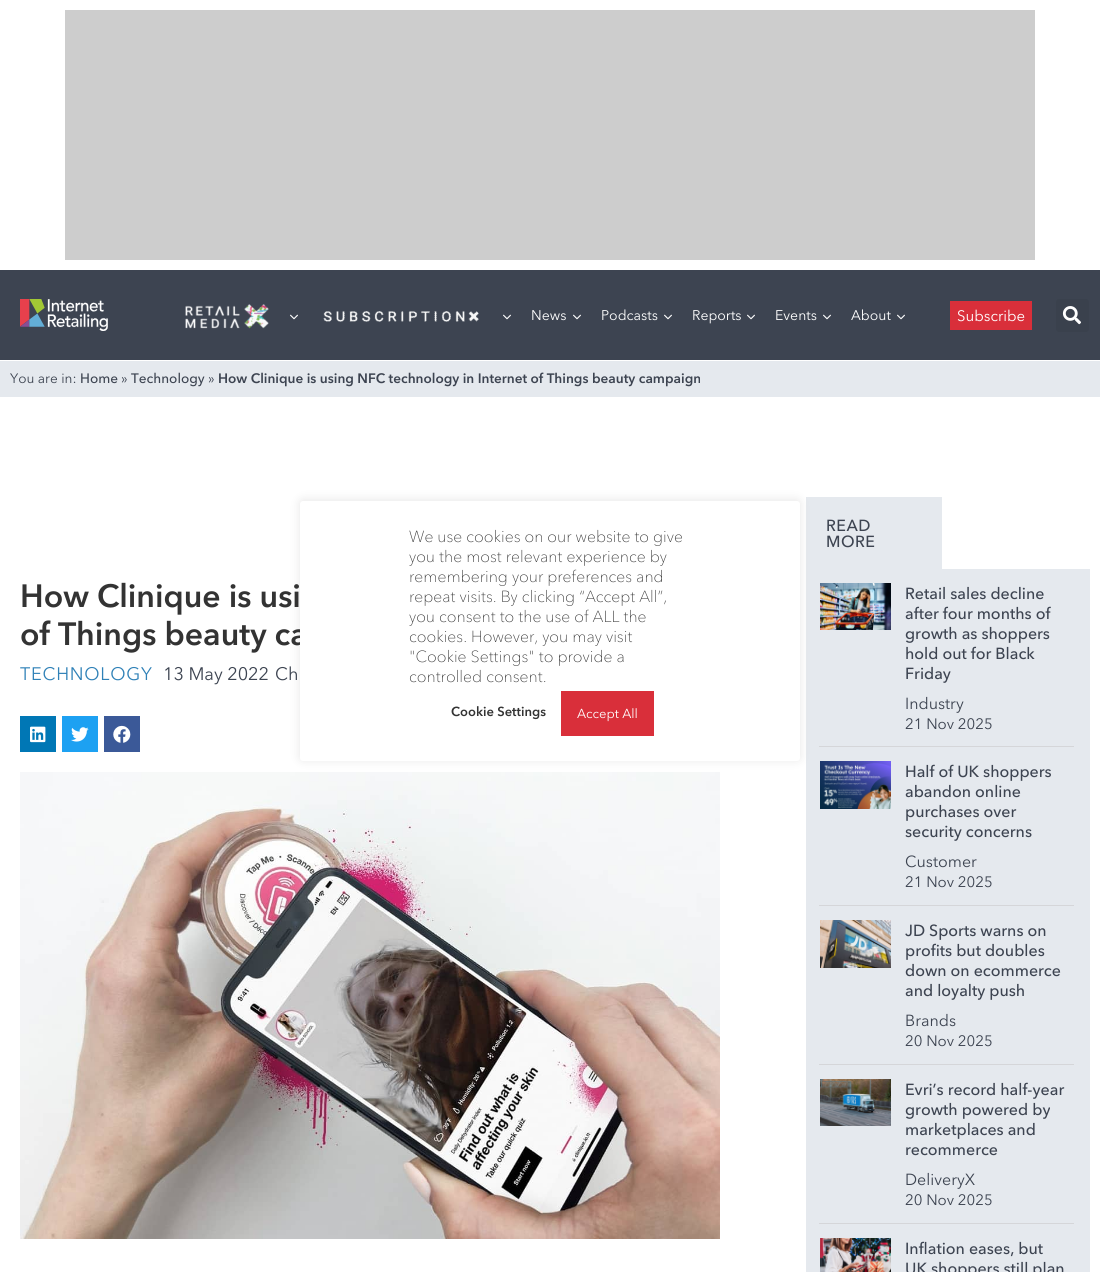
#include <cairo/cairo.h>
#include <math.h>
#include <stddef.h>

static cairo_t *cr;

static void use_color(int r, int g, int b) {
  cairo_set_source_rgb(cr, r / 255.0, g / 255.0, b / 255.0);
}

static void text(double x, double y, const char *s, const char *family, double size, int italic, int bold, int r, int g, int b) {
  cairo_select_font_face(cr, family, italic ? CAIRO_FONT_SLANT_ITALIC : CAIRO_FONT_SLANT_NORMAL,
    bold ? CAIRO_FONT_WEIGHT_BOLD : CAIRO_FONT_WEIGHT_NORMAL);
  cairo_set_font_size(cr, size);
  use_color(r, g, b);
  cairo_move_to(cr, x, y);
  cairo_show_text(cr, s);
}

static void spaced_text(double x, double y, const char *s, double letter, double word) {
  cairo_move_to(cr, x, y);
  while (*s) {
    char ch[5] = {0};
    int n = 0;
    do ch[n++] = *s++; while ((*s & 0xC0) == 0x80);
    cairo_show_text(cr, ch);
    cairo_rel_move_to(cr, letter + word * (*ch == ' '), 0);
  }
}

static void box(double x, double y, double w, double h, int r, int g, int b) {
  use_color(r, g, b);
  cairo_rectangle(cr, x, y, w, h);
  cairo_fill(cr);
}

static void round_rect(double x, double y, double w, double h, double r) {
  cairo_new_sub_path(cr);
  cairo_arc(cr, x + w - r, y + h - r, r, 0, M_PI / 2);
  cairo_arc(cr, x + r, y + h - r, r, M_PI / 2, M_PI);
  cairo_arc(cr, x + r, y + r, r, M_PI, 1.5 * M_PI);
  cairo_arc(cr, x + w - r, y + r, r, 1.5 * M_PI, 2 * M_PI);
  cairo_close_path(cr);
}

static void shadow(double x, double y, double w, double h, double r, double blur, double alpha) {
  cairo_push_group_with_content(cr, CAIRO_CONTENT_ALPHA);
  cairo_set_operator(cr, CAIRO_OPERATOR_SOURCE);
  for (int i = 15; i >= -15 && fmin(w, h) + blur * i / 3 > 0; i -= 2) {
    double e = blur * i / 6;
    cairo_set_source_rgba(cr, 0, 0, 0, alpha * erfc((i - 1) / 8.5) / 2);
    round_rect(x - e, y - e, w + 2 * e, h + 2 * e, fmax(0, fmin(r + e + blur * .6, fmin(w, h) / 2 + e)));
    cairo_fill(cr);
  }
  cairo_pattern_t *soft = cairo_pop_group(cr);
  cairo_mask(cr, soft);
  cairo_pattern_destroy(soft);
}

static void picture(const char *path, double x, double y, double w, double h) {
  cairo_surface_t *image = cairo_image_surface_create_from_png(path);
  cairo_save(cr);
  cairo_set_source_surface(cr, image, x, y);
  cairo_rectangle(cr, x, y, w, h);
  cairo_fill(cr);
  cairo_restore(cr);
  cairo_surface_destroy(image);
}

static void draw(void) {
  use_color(255, 255, 255);
  cairo_paint(cr);
  box(65, 10, 970, 250, 205, 205, 205);
  box(0, 270, 1100, 90, 61, 68, 81);
  picture("img_01.png", 20, 299, 88, 32);
  picture("img_02.png", 185, 304, 84, 25);
  picture("img_03.png", 290, 314, 8, 6);
  picture("img_04.png", 323, 311, 156, 11);
  picture("img_03.png", 503, 314, 8, 6);
  picture("img_03.png", 573, 314, 8, 6);
  picture("img_03.png", 664, 314, 8, 6);
  picture("img_03.png", 747, 314, 8, 6);
  picture("img_03.png", 823, 314, 8, 6);
  picture("img_03.png", 897, 314, 8, 6);
  box(950, 301, 82, 29, 217, 47, 58);
  use_color(58, 65, 77);
  round_rect(1056, 299, 33, 33, 3);
  cairo_fill(cr);
  picture("img_05.png", 1062, 306, 19, 19);
  box(0, 361, 1100, 36, 229, 233, 238);
  box(20, 716, 36, 36, 0, 119, 181);
  picture("img_06.png", 30, 726, 16, 17);
  box(62, 716, 36, 36, 29, 161, 242);
  picture("img_07.png", 71, 727, 18, 15);
  box(104, 716, 36, 36, 59, 89, 152);
  picture("img_08.png", 113, 725, 18, 18);
  picture("img_09.png", 20, 772, 700, 467);
  box(806, 497, 136, 72, 229, 233, 238);
  box(806, 569, 284, 703, 229, 233, 238);
  picture("img_10.png", 820, 583, 71, 47);
  box(819, 746, 255, 1, 213, 214, 217);
  picture("img_11.png", 820, 761, 71, 48);
  box(819, 905, 255, 1, 213, 214, 217);
  picture("img_12.png", 820, 920, 71, 48);
  box(819, 1064, 255, 1, 213, 214, 217);
  picture("img_13.png", 820, 1079, 71, 47);
  box(819, 1223, 255, 1, 213, 214, 217);
  picture("img_14.png", 820, 1238, 71, 34);
  use_color(172, 171, 171);
  shadow(300, 500, 500, 260, 3, 5, 0.3);
  text(531, 320, "News", "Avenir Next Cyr", 14, 0, 0, 255, 255, 255);
  text(601, 320, "Podcasts", "Avenir Next Cyr", 14, 0, 0, 255, 255, 255);
  text(692, 320, "Reports", "Avenir Next Cyr", 14, 0, 0, 255, 255, 255);
  text(775, 320, "Events", "Avenir Next Cyr", 14, 0, 0, 255, 255, 255);
  text(851, 320, "About", "Avenir Next Cyr", 14, 0, 0, 255, 255, 255);
  text(957, 321, "Subscribe", "Avenir Next Cyr", 15, 0, 0, 255, 255, 255);
  text(10, 383, "You are in:", "Avenir Next Cyr", 13.6, 0, 0, 61, 68, 81);
  text(80, 383, "Home", "Avenir Next Cyr Medium", 13.6, 0, 0, 61, 68, 81);
  text(121, 383, "»", "Avenir Next Cyr", 13.6, 0, 0, 61, 68, 81);
  text(131, 383, "Technology", "Avenir Next Cyr Medium", 13.6, 0, 0, 61, 68, 81);
  text(208, 383, "»", "Avenir Next Cyr", 13.6, 0, 0, 61, 68, 81);
  text(218, 383, "How Clinique is using NFC technology in Internet of Things beauty campaign", "Avenir Next Cyr", 13.6, 0, 1, 61, 68, 81);
  text(20, 607, "How Clinique is usi", "Avenir Next Cyr", 32, 0, 1, 51, 51, 51);
  text(20, 645, "of Things beauty ca", "Avenir Next Cyr", 32, 0, 1, 51, 51, 51);
  cairo_select_font_face(cr, "Avenir Next Cyr", CAIRO_FONT_SLANT_NORMAL, CAIRO_FONT_WEIGHT_NORMAL);
  cairo_set_font_size(cr, 18);
  use_color(47, 129, 183);
  spaced_text(20, 680, "TECHNOLOGY", 0.75, 0);
  text(163, 680, "13 May 2022", "Avenir Next Cyr", 18, 0, 0, 61, 68, 81);
  text(275, 680, "Ch", "Avenir Next Cyr", 18, 0, 0, 61, 68, 81);
  cairo_select_font_face(cr, "Avenir Next Cyr Medium", CAIRO_FONT_SLANT_NORMAL, CAIRO_FONT_WEIGHT_NORMAL);
  cairo_set_font_size(cr, 16);
  spaced_text(826, 531, "READ", 0.5, 0);
  spaced_text(826, 547, "MORE", 0.5, 0);
  text(905, 599, "Retail sales decline", "Avenir Next Cyr Medium", 16, 0, 0, 61, 68, 81);
  text(905, 619, "after four months of", "Avenir Next Cyr Medium", 16, 0, 0, 61, 68, 81);
  text(905, 639, "growth as shoppers", "Avenir Next Cyr Medium", 16, 0, 0, 61, 68, 81);
  text(905, 659, "hold out for Black", "Avenir Next Cyr Medium", 16, 0, 0, 61, 68, 81);
  text(905, 679, "Friday", "Avenir Next Cyr Medium", 16, 0, 0, 61, 68, 81);
  text(905, 709, "Industry", "Avenir Next Cyr", 16, 0, 0, 61, 68, 81);
  text(905, 729, "21 Nov 2025", "Avenir Next Cyr", 15, 0, 0, 61, 68, 81);
  text(905, 777, "Half of UK shoppers", "Avenir Next Cyr Medium", 16, 0, 0, 61, 68, 81);
  text(905, 797, "abandon online", "Avenir Next Cyr Medium", 16, 0, 0, 61, 68, 81);
  text(905, 817, "purchases over", "Avenir Next Cyr Medium", 16, 0, 0, 61, 68, 81);
  text(905, 837, "security concerns", "Avenir Next Cyr Medium", 16, 0, 0, 61, 68, 81);
  text(905, 867, "Customer", "Avenir Next Cyr", 16, 0, 0, 61, 68, 81);
  text(905, 887, "21 Nov 2025", "Avenir Next Cyr", 15, 0, 0, 61, 68, 81);
  text(905, 936, "JD Sports warns on", "Avenir Next Cyr Medium", 16, 0, 0, 61, 68, 81);
  text(905, 956, "profits but doubles", "Avenir Next Cyr Medium", 16, 0, 0, 61, 68, 81);
  text(905, 976, "down on ecommerce", "Avenir Next Cyr Medium", 16, 0, 0, 61, 68, 81);
  text(905, 996, "and loyalty push", "Avenir Next Cyr Medium", 16, 0, 0, 61, 68, 81);
  text(905, 1026, "Brands", "Avenir Next Cyr", 16, 0, 0, 61, 68, 81);
  text(905, 1046, "20 Nov 2025", "Avenir Next Cyr", 15, 0, 0, 61, 68, 81);
  text(905, 1095, "Evri’s record half-year", "Avenir Next Cyr Medium", 16, 0, 0, 61, 68, 81);
  text(905, 1115, "growth powered by", "Avenir Next Cyr Medium", 16, 0, 0, 61, 68, 81);
  text(905, 1135, "marketplaces and", "Avenir Next Cyr Medium", 16, 0, 0, 61, 68, 81);
  text(905, 1155, "recommerce", "Avenir Next Cyr Medium", 16, 0, 0, 61, 68, 81);
  text(905, 1185, "DeliveryX", "Avenir Next Cyr", 16, 0, 0, 61, 68, 81);
  text(905, 1205, "20 Nov 2025", "Avenir Next Cyr", 15, 0, 0, 61, 68, 81);
  text(905, 1254, "Inflation eases, but", "Avenir Next Cyr Medium", 16, 0, 0, 61, 68, 81);
  text(905, 1274, "UK shoppers still plan", "Avenir Next Cyr Medium", 16, 0, 0, 61, 68, 81);
  use_color(255, 255, 255);
  round_rect(300, 501, 500, 260, 3);
  cairo_fill(cr);
  text(409, 542, "We use cookies on our website to give", "Avenir Next Cyr Thin", 16, 0, 0, 51, 51, 51);
  text(409, 562, "you the most relevant experience by", "Avenir Next Cyr Thin", 16, 0, 0, 51, 51, 51);
  text(409, 582, "remembering your preferences and", "Avenir Next Cyr Thin", 16, 0, 0, 51, 51, 51);
  text(409, 602, "repeat visits. By clicking “Accept All”,", "Avenir Next Cyr Thin", 16, 0, 0, 51, 51, 51);
  text(409, 622, "you consent to the use of ALL the", "Avenir Next Cyr Thin", 16, 0, 0, 51, 51, 51);
  text(409, 642, "cookies. However, you may visit", "Avenir Next Cyr Thin", 16, 0, 0, 51, 51, 51);
  text(409, 662, "\"Cookie Settings\" to provide a", "Avenir Next Cyr Thin", 16, 0, 0, 51, 51, 51);
  text(409, 682, "controlled consent.", "Avenir Next Cyr Thin", 16, 0, 0, 51, 51, 51);
  text(451, 716, "Cookie Settings", "Avenir Next Cyr", 13, 0, 1, 51, 51, 51);
  box(561, 691, 93, 45, 217, 47, 58);
  text(577, 718, "Accept All", "Avenir Next Cyr", 13, 0, 0, 255, 255, 255);
}

int main(void) {
  cairo_surface_t *surface = cairo_image_surface_create(CAIRO_FORMAT_RGB24, 1100, 1272);
  cr = cairo_create(surface);
  cairo_font_options_t *options = cairo_font_options_create();
  cairo_font_options_set_hint_metrics(options, CAIRO_HINT_METRICS_OFF);
  cairo_font_options_set_hint_style(options, CAIRO_HINT_STYLE_NONE);
  cairo_set_font_options(cr, options);
  cairo_set_miter_limit(cr, 4);
  draw();
  cairo_surface_write_to_png(surface, "out.png");
  cairo_font_options_destroy(options);
  cairo_destroy(cr);
  cairo_surface_destroy(surface);
  return 0;
}
